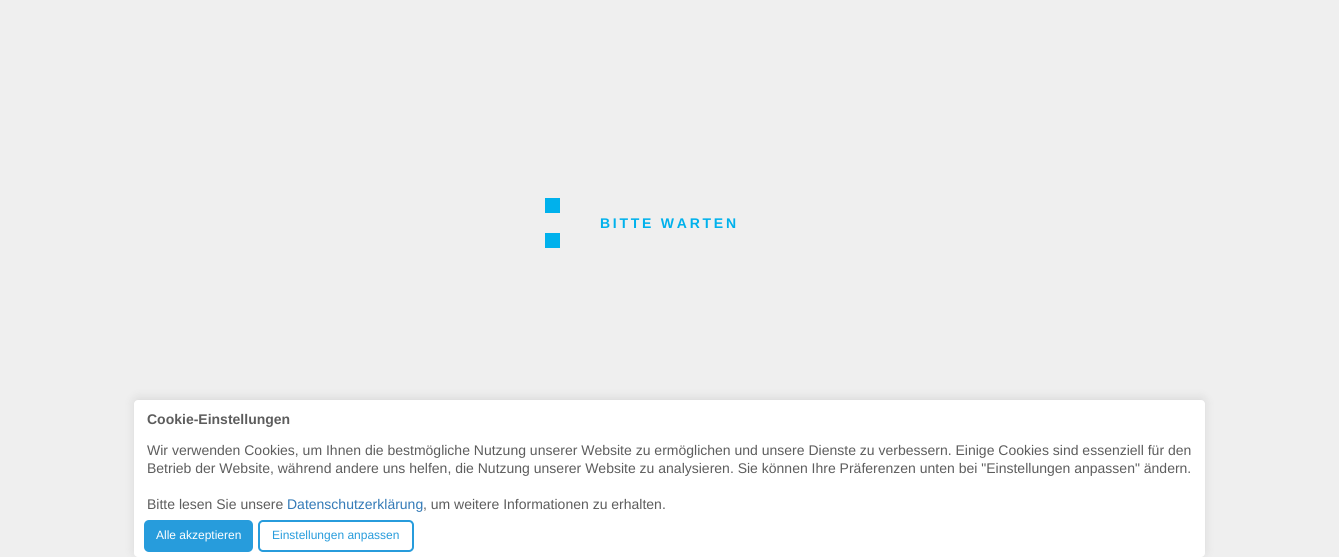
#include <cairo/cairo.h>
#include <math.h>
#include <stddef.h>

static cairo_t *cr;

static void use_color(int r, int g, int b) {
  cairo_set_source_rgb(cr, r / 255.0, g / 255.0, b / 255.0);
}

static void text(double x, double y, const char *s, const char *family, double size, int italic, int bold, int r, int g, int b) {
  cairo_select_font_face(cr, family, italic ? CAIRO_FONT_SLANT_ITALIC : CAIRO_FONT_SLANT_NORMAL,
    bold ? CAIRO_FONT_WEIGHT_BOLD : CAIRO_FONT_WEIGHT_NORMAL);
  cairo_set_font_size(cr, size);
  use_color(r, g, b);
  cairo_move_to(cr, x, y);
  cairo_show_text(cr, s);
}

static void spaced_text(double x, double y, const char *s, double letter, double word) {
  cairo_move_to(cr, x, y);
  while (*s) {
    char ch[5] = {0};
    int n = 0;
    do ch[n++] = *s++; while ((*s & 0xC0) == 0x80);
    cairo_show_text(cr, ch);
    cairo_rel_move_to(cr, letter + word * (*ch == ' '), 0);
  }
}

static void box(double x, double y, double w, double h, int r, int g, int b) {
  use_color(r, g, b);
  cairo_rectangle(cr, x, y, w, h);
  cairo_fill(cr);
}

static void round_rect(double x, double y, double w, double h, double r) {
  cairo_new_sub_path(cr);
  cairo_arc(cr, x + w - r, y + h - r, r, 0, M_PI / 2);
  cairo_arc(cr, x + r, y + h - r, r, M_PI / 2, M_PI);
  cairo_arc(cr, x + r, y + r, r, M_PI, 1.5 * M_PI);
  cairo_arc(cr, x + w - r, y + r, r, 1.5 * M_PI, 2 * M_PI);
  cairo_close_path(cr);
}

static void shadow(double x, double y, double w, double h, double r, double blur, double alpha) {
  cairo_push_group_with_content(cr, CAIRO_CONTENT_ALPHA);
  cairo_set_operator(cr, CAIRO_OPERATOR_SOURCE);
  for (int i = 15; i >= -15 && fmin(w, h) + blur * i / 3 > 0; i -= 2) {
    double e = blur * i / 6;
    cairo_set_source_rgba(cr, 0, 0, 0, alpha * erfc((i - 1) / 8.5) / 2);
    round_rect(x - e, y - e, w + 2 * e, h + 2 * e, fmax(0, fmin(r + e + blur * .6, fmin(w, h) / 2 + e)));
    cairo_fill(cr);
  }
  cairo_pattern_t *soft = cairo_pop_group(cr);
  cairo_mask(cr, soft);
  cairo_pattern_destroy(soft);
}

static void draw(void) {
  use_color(239, 239, 239);
  cairo_paint(cr);
  box(545, 198, 15, 15, 0, 177, 236);
  box(545, 233, 15, 15, 0, 177, 236);
  use_color(0, 0, 0);
  shadow(134, 398, 1071, 157, 4, 5, 0.1);
  use_color(255, 255, 255);
  round_rect(134, 400, 1071, 157, 4);
  cairo_fill(cr);
  use_color(39, 156, 220);
  round_rect(144, 520, 109, 32, 5);
  cairo_fill(cr);
  round_rect(259, 521, 154, 30, 4);
  cairo_stroke(cr);
  cairo_select_font_face(cr, "Liberation Sans", CAIRO_FONT_SLANT_NORMAL, CAIRO_FONT_WEIGHT_BOLD);
  cairo_set_font_size(cr, 14);
  use_color(0, 177, 236);
  spaced_text(600, 228, "BITTE WARTEN", 2.75, 0);
  text(147, 424, "Cookie-Einstellungen", "Liberation Sans", 14, 0, 1, 93, 93, 93);
  text(147, 455, "Wir verwenden Cookies, um Ihnen die bestmögliche Nutzung unserer Website zu ermöglichen und unsere Dienste zu verbessern. Einige Cookies sind essenziell für den", "Liberation Sans", 14, 0, 0, 93, 93, 93);
  text(147, 473, "Betrieb der Website, während andere uns helfen, die Nutzung unserer Website zu analysieren. Sie können Ihre Präferenzen unten bei \"Einstellungen anpassen\" ändern.", "Liberation Sans", 14, 0, 0, 93, 93, 93);
  text(147, 509, "Bitte lesen Sie unsere", "Liberation Sans", 14, 0, 0, 93, 93, 93);
  text(287, 509, "Datenschutzerklärung", "Liberation Sans", 14, 0, 0, 51, 122, 183);
  text(423, 509, ", um weitere Informationen zu erhalten.", "Liberation Sans", 14, 0, 0, 93, 93, 93);
  text(156, 539, "Alle akzeptieren", "Liberation Sans", 12, 0, 0, 255, 255, 255);
  text(272, 539, "Einstellungen anpassen", "Liberation Sans", 12, 0, 0, 39, 156, 220);
}

int main(void) {
  cairo_surface_t *surface = cairo_image_surface_create(CAIRO_FORMAT_RGB24, 1339, 557);
  cr = cairo_create(surface);
  cairo_font_options_t *options = cairo_font_options_create();
  cairo_font_options_set_hint_metrics(options, CAIRO_HINT_METRICS_OFF);
  cairo_font_options_set_hint_style(options, CAIRO_HINT_STYLE_NONE);
  cairo_set_font_options(cr, options);
  cairo_set_miter_limit(cr, 4);
  draw();
  cairo_surface_write_to_png(surface, "out.png");
  cairo_font_options_destroy(options);
  cairo_destroy(cr);
  cairo_surface_destroy(surface);
  return 0;
}
